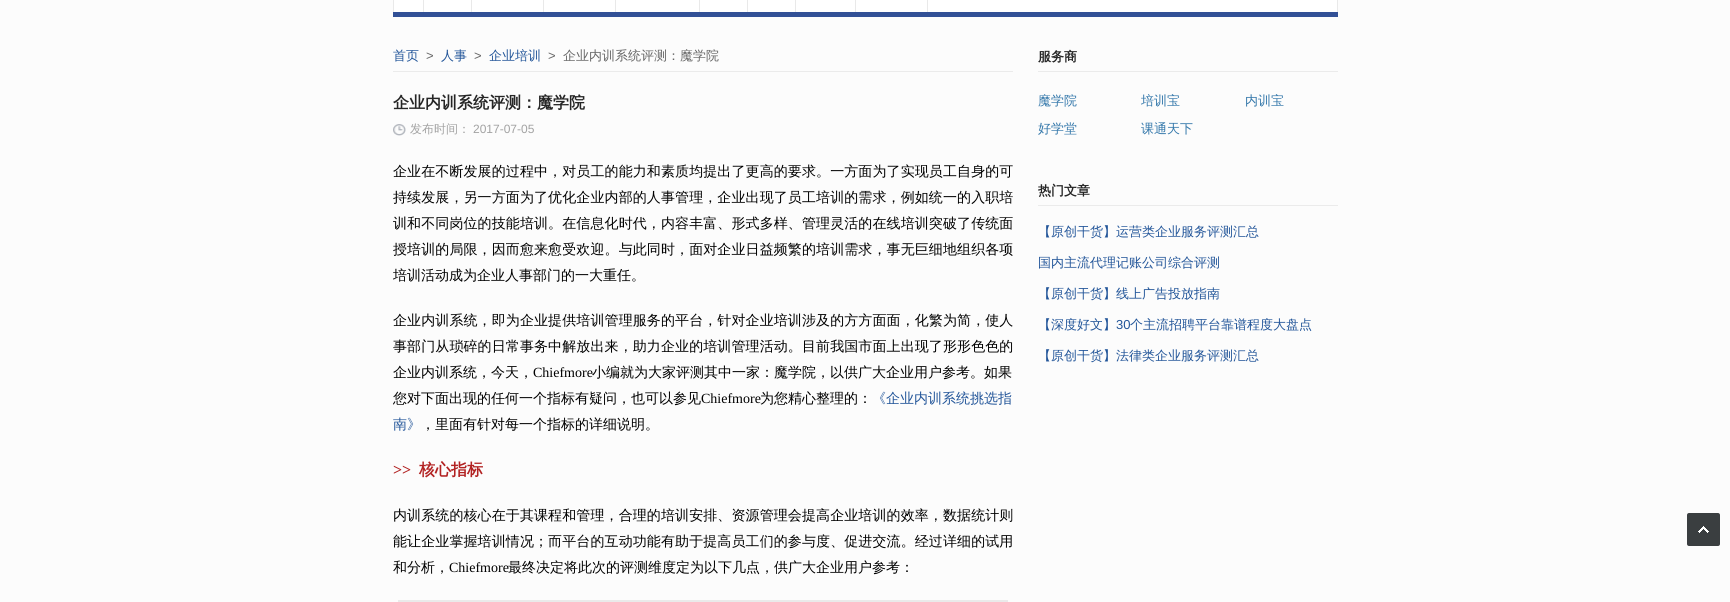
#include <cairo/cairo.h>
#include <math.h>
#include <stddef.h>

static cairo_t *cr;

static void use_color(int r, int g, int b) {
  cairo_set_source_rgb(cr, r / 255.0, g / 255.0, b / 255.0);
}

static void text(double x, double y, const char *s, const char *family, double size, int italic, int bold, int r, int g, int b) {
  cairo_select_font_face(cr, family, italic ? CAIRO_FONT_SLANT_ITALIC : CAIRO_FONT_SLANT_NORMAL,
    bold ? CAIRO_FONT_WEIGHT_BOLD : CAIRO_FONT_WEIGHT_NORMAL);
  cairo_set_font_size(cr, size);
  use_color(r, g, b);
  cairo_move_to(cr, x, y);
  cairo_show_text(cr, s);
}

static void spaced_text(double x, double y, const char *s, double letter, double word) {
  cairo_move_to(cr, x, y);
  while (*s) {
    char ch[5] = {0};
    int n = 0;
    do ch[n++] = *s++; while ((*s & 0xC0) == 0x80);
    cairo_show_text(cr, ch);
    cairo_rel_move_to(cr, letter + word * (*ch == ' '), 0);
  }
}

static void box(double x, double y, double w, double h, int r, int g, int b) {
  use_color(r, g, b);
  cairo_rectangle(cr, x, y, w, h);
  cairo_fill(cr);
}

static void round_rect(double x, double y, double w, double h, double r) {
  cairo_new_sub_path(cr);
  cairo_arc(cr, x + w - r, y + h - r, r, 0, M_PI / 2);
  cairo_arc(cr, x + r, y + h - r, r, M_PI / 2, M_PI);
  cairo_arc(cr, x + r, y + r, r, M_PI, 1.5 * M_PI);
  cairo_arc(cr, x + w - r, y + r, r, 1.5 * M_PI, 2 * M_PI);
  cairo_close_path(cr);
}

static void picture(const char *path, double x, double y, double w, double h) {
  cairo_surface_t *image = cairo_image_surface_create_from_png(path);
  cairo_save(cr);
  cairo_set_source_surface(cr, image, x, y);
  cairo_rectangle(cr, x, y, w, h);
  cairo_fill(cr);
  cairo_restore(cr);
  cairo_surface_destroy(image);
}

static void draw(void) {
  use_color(252, 252, 252);
  cairo_paint(cr);
  box(393, 12, 945, 5, 50, 80, 150);
  box(394, 0, 943, 12, 255, 255, 255);
  box(1337, 0, 1, 12, 233, 233, 233);
  box(423, 0, 1, 12, 233, 233, 233);
  box(393, 0, 1, 12, 233, 233, 233);
  box(471, 0, 1, 12, 233, 233, 233);
  box(543, 0, 1, 12, 233, 233, 233);
  box(615, 0, 1, 12, 233, 233, 233);
  box(699, 0, 1, 12, 233, 233, 233);
  box(747, 0, 1, 12, 233, 233, 233);
  box(795, 0, 1, 12, 233, 233, 233);
  box(855, 0, 1, 12, 233, 233, 233);
  box(927, 0, 1, 12, 233, 233, 233);
  box(393, 71, 620, 1, 235, 235, 235);
  picture("img_01.png", 393, 124, 13, 12);
  box(398, 600, 610, 2, 234, 234, 234);
  box(1038, 71, 300, 1, 235, 235, 235);
  box(1038, 205, 300, 1, 235, 235, 235);
  use_color(58, 62, 64);
  round_rect(1687, 513, 33, 33, 2);
  cairo_fill(cr);
  picture("img_02.png", 1698, 526, 11, 7);
  text(393, 60, "首页", "WenQuanYi Zen Hei Medium", 13, 0, 0, 34, 85, 153);
  text(426, 60, ">", "Liberation Sans", 13, 0, 0, 102, 102, 102);
  text(441, 60, "人事", "WenQuanYi Zen Hei Medium", 13, 0, 0, 34, 85, 153);
  text(474, 60, ">", "Liberation Sans", 13, 0, 0, 102, 102, 102);
  text(489, 60, "企业培训", "WenQuanYi Zen Hei Medium", 13, 0, 0, 34, 85, 153);
  text(548, 60, ">", "Liberation Sans", 13, 0, 0, 102, 102, 102);
  text(563, 60, "企业内训系统评测：魔学院", "WenQuanYi Zen Hei Medium", 13, 0, 0, 102, 102, 102);
  text(393, 108, "企业内训系统评测：魔学院", "WenQuanYi Zen Hei", 16, 0, 1, 38, 38, 38);
  text(410, 133, "发布时间：", "WenQuanYi Zen Hei Medium", 12, 0, 0, 162, 162, 162);
  text(473, 133, "2017-07-05", "Liberation Sans", 12, 0, 0, 162, 162, 162);
  cairo_select_font_face(cr, "WenQuanYi Zen Hei Medium", CAIRO_FONT_SLANT_NORMAL, CAIRO_FONT_WEIGHT_NORMAL);
  cairo_set_font_size(cr, 14);
  use_color(0, 0, 0);
  spaced_text(393, 176, "企业在不断发展的过程中，对员工的能力和素质均提出了更高的要求。一方面为了实现员工自身的可", 0.1, 0);
  spaced_text(393, 202, "持续发展，另一方面为了优化企业内部的人事管理，企业出现了员工培训的需求，例如统一的入职培", 0.1, 0);
  spaced_text(393, 228, "训和不同岗位的技能培训。在信息化时代，内容丰富、形式多样、管理灵活的在线培训突破了传统面", 0.1, 0);
  spaced_text(393, 254, "授培训的局限，因而愈来愈受欢迎。与此同时，面对企业日益频繁的培训需求，事无巨细地组织各项", 0.1, 0);
  cairo_save(cr);
  cairo_rectangle(cr, 393, 159, 620, 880);
  cairo_clip(cr);
  text(393, 280, "培训活动成为企业人事部门的一大重任。", "WenQuanYi Zen Hei Medium", 14, 0, 0, 0, 0, 0);
  cairo_restore(cr);
  spaced_text(393, 325, "企业内训系统，即为企业提供培训管理服务的平台，针对企业培训涉及的方方面面，化繁为简，使人", 0.1, 0);
  spaced_text(393, 351, "事部门从琐碎的日常事务中解放出来，助力企业的培训管理活动。目前我国市面上出现了形形色色的", 0.1, 0);
  text(393, 377, "企业内训系统，今天，", "WenQuanYi Zen Hei Medium", 14, 0, 0, 0, 0, 0);
  text(533, 377, "Chiefmore", "Liberation Serif", 14, 0, 0, 0, 0, 0);
  text(592, 377, "小编就为大家评测其中一家：魔学院，以供广大企业用户参考。如果", "WenQuanYi Zen Hei Medium", 14, 0, 0, 0, 0, 0);
  text(393, 403, "您对下面出现的任何一个指标有疑问，也可以参见", "WenQuanYi Zen Hei Medium", 14, 0, 0, 0, 0, 0);
  text(701, 403, "Chiefmore", "Liberation Serif", 14, 0, 0, 0, 0, 0);
  text(760, 403, "为您精心整理的：", "WenQuanYi Zen Hei Medium", 14, 0, 0, 0, 0, 0);
  text(872, 403, "《企业内训系统挑选指", "WenQuanYi Zen Hei Medium", 14, 0, 0, 34, 85, 153);
  text(393, 429, "南》", "WenQuanYi Zen Hei Medium", 14, 0, 0, 34, 85, 153);
  text(421, 429, "，里面有针对每一个指标的详细说明。", "WenQuanYi Zen Hei Medium", 14, 0, 0, 0, 0, 0);
  text(393, 475, ">>", "Liberation Serif", 16, 0, 1, 178, 34, 34);
  text(419, 475, "核心指标", "WenQuanYi Zen Hei", 16, 0, 1, 178, 34, 34);
  cairo_select_font_face(cr, "WenQuanYi Zen Hei Medium", CAIRO_FONT_SLANT_NORMAL, CAIRO_FONT_WEIGHT_NORMAL);
  cairo_set_font_size(cr, 14);
  use_color(0, 0, 0);
  spaced_text(393, 520, "内训系统的核心在于其课程和管理，合理的培训安排、资源管理会提高企业培训的效率，数据统计则", 0.1, 0);
  spaced_text(393, 546, "能让企业掌握培训情况；而平台的互动功能有助于提高员工们的参与度、促进交流。经过详细的试用", 0.1, 0);
  text(393, 572, "和分析，", "WenQuanYi Zen Hei Medium", 14, 0, 0, 0, 0, 0);
  text(449, 572, "Chiefmore", "Liberation Serif", 14, 0, 0, 0, 0, 0);
  text(508, 572, "最终决定将此次的评测维度定为以下几点，供广大企业用户参考：", "WenQuanYi Zen Hei Medium", 14, 0, 0, 0, 0, 0);
  text(1038, 61, "服务商", "WenQuanYi Zen Hei", 13, 0, 1, 38, 38, 38);
  text(1038, 105, "魔学院", "WenQuanYi Zen Hei Medium", 13, 0, 0, 51, 119, 170);
  text(1141, 105, "培训宝", "WenQuanYi Zen Hei Medium", 13, 0, 0, 51, 119, 170);
  text(1245, 105, "内训宝", "WenQuanYi Zen Hei Medium", 13, 0, 0, 51, 119, 170);
  text(1038, 133, "好学堂", "WenQuanYi Zen Hei Medium", 13, 0, 0, 51, 119, 170);
  text(1141, 133, "课通天下", "WenQuanYi Zen Hei Medium", 13, 0, 0, 51, 119, 170);
  cairo_save(cr);
  cairo_rectangle(cr, 1038, 176, 300, 29);
  cairo_clip(cr);
  text(1038, 195, "热门文章", "WenQuanYi Zen Hei", 13, 0, 1, 38, 38, 38);
  cairo_restore(cr);
  text(1038, 236, "【原创干货】运营类企业服务评测汇总", "WenQuanYi Zen Hei Medium", 13, 0, 0, 34, 85, 153);
  text(1038, 267, "国内主流代理记账公司综合评测", "WenQuanYi Zen Hei Medium", 13, 0, 0, 34, 85, 153);
  text(1038, 298, "【原创干货】线上广告投放指南", "WenQuanYi Zen Hei Medium", 13, 0, 0, 34, 85, 153);
  text(1038, 329, "【深度好文】", "WenQuanYi Zen Hei Medium", 13, 0, 0, 34, 85, 153);
  text(1116, 329, "30", "Liberation Sans", 13, 0, 0, 34, 85, 153);
  text(1130, 329, "个主流招聘平台靠谱程度大盘点", "WenQuanYi Zen Hei Medium", 13, 0, 0, 34, 85, 153);
  text(1038, 360, "【原创干货】法律类企业服务评测汇总", "WenQuanYi Zen Hei Medium", 13, 0, 0, 34, 85, 153);
}

int main(void) {
  cairo_surface_t *surface = cairo_image_surface_create(CAIRO_FORMAT_RGB24, 1730, 602);
  cr = cairo_create(surface);
  cairo_font_options_t *options = cairo_font_options_create();
  cairo_font_options_set_hint_metrics(options, CAIRO_HINT_METRICS_OFF);
  cairo_font_options_set_hint_style(options, CAIRO_HINT_STYLE_NONE);
  cairo_set_font_options(cr, options);
  cairo_set_miter_limit(cr, 4);
  draw();
  cairo_surface_write_to_png(surface, "out.png");
  cairo_font_options_destroy(options);
  cairo_destroy(cr);
  cairo_surface_destroy(surface);
  return 0;
}
